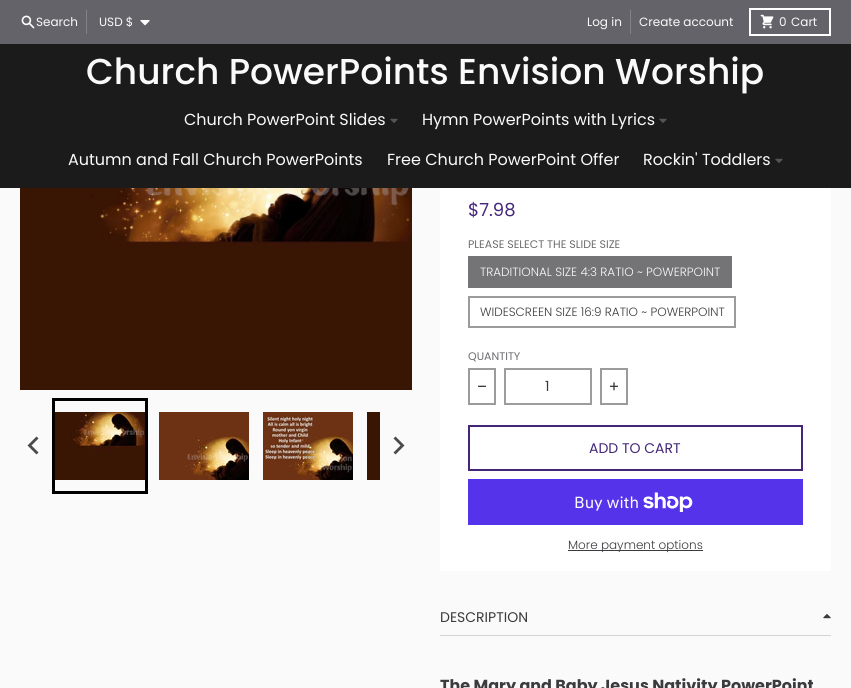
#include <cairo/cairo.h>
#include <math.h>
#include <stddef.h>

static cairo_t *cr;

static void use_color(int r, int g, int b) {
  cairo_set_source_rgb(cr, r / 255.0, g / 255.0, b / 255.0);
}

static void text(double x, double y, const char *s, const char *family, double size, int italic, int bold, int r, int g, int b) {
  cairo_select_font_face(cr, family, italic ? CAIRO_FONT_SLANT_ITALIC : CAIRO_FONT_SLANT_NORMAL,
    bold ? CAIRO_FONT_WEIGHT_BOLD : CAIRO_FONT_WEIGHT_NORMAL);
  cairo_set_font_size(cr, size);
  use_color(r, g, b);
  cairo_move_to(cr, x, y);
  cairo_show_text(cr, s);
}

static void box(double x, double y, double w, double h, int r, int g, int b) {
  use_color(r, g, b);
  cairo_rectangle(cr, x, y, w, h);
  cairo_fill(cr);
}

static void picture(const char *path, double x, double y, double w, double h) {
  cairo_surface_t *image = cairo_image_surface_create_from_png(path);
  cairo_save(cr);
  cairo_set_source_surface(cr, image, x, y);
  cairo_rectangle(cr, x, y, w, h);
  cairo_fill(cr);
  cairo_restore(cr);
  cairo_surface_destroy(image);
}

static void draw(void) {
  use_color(250, 250, 250);
  cairo_paint(cr);
  box(0, 0, 851, 44, 101, 99, 106);
  picture("img_01.png", 21, 15, 14, 14);
  box(86, 10, 1, 24, 132, 130, 136);
  picture("img_02.png", 140, 20, 10, 6);
  box(630, 10, 1, 24, 132, 130, 136);
  cairo_rectangle(cr, 750, 9, 80, 26);
  use_color(255, 255, 255);
  cairo_stroke(cr);
  picture("img_03.png", 760, 14, 14, 15);
  box(0, 44, 851, 144, 27, 27, 27);
  picture("img_04.png", 390, 118, 8, 5);
  picture("img_04.png", 659, 118, 8, 5);
  picture("img_04.png", 775, 158, 8, 5);
  picture("img_05.png", 20, 188, 392, 202);
  cairo_rectangle(cr, 53.5, 399.5, 93, 93);
  use_color(0, 0, 0);
  cairo_set_line_width(cr, 3);
  cairo_stroke(cr);
  picture("img_06.png", 55, 412, 90, 68);
  picture("img_07.png", 159, 412, 90, 68);
  picture("img_08.png", 263, 412, 90, 68);
  box(367, 412, 13, 68, 57, 22, 4);
  use_color(75, 75, 75);
  cairo_new_path(cr);
  cairo_move_to(cr, 36.5, 436.5);
  cairo_line_to(cr, 38.5, 438.5);
  cairo_line_to(cr, 31.5, 445.5);
  cairo_line_to(cr, 38.5, 452.5);
  cairo_line_to(cr, 36.5, 454.5);
  cairo_line_to(cr, 27.5, 445.5);
  cairo_close_path(cr);
  cairo_fill(cr);
  cairo_new_path(cr);
  cairo_move_to(cr, 395.5, 436.5);
  cairo_line_to(cr, 393.5, 438.5);
  cairo_line_to(cr, 400.5, 445.5);
  cairo_line_to(cr, 393.5, 452.5);
  cairo_line_to(cr, 395.5, 454.5);
  cairo_line_to(cr, 404.5, 445.5);
  cairo_close_path(cr);
  cairo_fill(cr);
  box(440, 188, 391, 383, 255, 255, 255);
  box(468, 256, 264, 32, 116, 116, 118);
  cairo_rectangle(cr, 469, 297, 266, 30);
  use_color(155, 154, 156);
  cairo_set_line_width(cr, 2);
  cairo_stroke(cr);
  cairo_rectangle(cr, 469, 369, 26, 35);
  cairo_stroke(cr);
  picture("img_09.png", 478, 385, 8, 2);
  cairo_rectangle(cr, 505, 369, 86, 35);
  use_color(157, 157, 158);
  cairo_stroke(cr);
  cairo_rectangle(cr, 601, 369, 26, 35);
  use_color(155, 154, 156);
  cairo_stroke(cr);
  picture("img_10.png", 610, 382, 8, 9);
  cairo_rectangle(cr, 469, 426, 333, 44);
  use_color(68, 39, 120);
  cairo_stroke(cr);
  box(468, 479, 335, 46, 84, 51, 235);
  picture("img_11.png", 643, 492, 50, 20);
  box(568, 550, 135, 1, 59, 58, 61);
  box(440, 635, 391, 1, 212, 212, 212);
  picture("img_12.png", 823, 614, 8, 5);
  text(36, 26, "Search", "Poppins", 12, 0, 0, 250, 250, 250);
  text(99, 26, "USD $", "Poppins", 12, 0, 0, 250, 250, 250);
  text(587, 26, "Log in", "Poppins", 12, 0, 0, 250, 250, 250);
  text(639, 26, "Create account", "Poppins", 12, 0, 0, 250, 250, 250);
  text(779, 26, "0", "Poppins", 12, 0, 0, 250, 250, 250);
  text(791, 26, "Cart", "Poppins", 12, 0, 0, 250, 250, 250);
  text(86, 84, "Church PowerPoints Envision Worship", "Poppins Medium", 36, 0, 0, 250, 250, 250);
  text(184, 125, "Church PowerPoint Slides", "Poppins", 16, 0, 0, 250, 250, 250);
  text(422, 125, "Hymn PowerPoints with Lyrics", "Poppins", 16, 0, 0, 250, 250, 250);
  text(68, 165, "Autumn and Fall Church PowerPoints", "Poppins", 16, 0, 0, 250, 250, 250);
  text(387, 165, "Free Church PowerPoint Offer", "Poppins", 16, 0, 0, 250, 250, 250);
  text(643, 165, "Rockin' Toddlers", "Poppins", 16, 0, 0, 250, 250, 250);
  text(468, 216, "$7.98", "Poppins", 18, 0, 0, 68, 39, 120);
  text(468, 248, "PLEASE SELECT THE SLIDE SIZE", "Poppins", 11, 0, 0, 108, 107, 110);
  text(480, 276, "TRADITIONAL SIZE 4:3 RATIO ~ POWERPOINT", "Poppins Light", 12, 0, 0, 250, 250, 250);
  text(480, 316, "WIDESCREEN SIZE 16:9 RATIO ~ POWERPOINT", "Poppins Light", 12, 0, 0, 59, 58, 61);
  text(468, 360, "QUANTITY", "Poppins", 11, 0, 0, 108, 107, 110);
  text(545, 391, "1", "Poppins", 14, 0, 0, 59, 58, 61);
  text(589, 453, "ADD TO CART", "Poppins", 14, 0, 0, 68, 39, 120);
  text(574, 508, "Buy with", "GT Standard", 16, 0, 0, 250, 250, 250);
  text(568, 549, "More payment options", "Poppins Light", 12, 0, 0, 59, 58, 61);
  text(440, 622, "DESCRIPTION", "Poppins", 14, 0, 0, 59, 58, 61);
  text(440, 691, "The Mary and Baby Jesus Nativity PowerPoint", "Poppins", 16, 0, 1, 59, 58, 61);
}

int main(void) {
  cairo_surface_t *surface = cairo_image_surface_create(CAIRO_FORMAT_RGB24, 851, 688);
  cr = cairo_create(surface);
  cairo_font_options_t *options = cairo_font_options_create();
  cairo_font_options_set_hint_metrics(options, CAIRO_HINT_METRICS_OFF);
  cairo_font_options_set_hint_style(options, CAIRO_HINT_STYLE_NONE);
  cairo_set_font_options(cr, options);
  cairo_set_miter_limit(cr, 4);
  draw();
  cairo_surface_write_to_png(surface, "out.png");
  cairo_font_options_destroy(options);
  cairo_destroy(cr);
  cairo_surface_destroy(surface);
  return 0;
}
